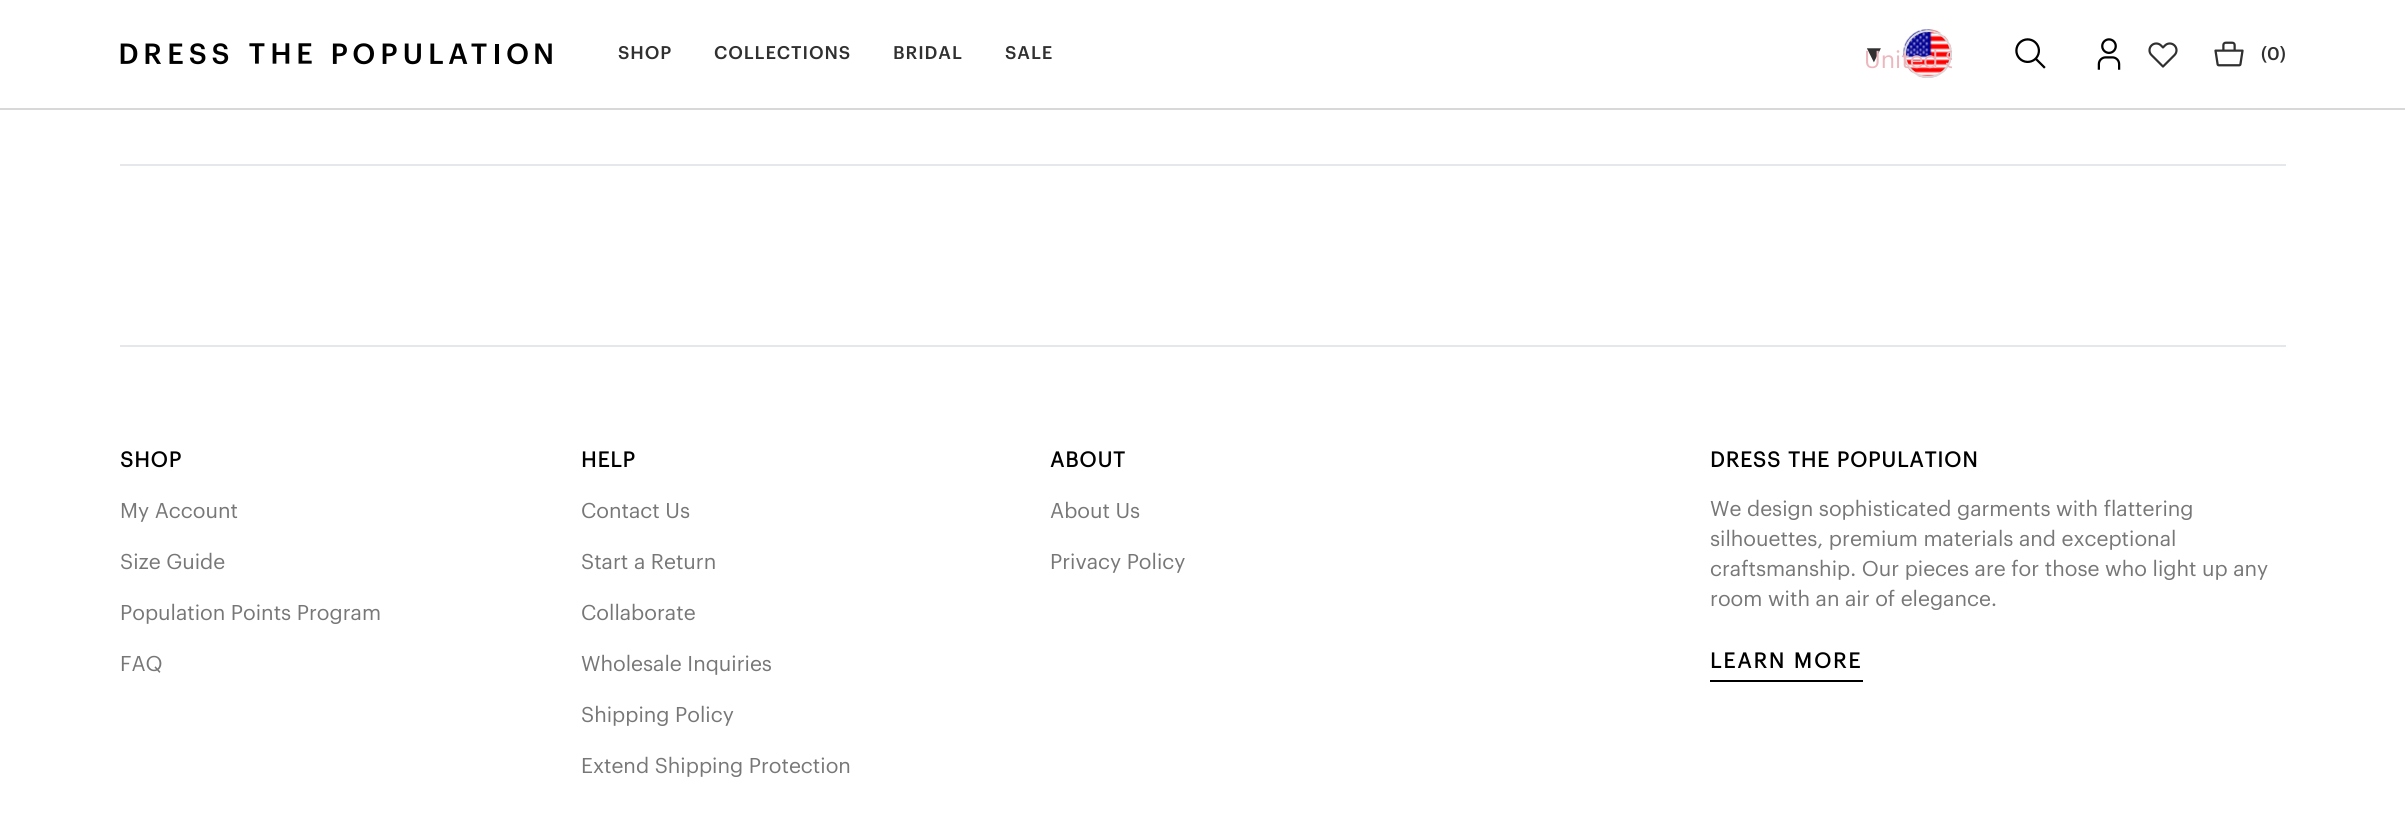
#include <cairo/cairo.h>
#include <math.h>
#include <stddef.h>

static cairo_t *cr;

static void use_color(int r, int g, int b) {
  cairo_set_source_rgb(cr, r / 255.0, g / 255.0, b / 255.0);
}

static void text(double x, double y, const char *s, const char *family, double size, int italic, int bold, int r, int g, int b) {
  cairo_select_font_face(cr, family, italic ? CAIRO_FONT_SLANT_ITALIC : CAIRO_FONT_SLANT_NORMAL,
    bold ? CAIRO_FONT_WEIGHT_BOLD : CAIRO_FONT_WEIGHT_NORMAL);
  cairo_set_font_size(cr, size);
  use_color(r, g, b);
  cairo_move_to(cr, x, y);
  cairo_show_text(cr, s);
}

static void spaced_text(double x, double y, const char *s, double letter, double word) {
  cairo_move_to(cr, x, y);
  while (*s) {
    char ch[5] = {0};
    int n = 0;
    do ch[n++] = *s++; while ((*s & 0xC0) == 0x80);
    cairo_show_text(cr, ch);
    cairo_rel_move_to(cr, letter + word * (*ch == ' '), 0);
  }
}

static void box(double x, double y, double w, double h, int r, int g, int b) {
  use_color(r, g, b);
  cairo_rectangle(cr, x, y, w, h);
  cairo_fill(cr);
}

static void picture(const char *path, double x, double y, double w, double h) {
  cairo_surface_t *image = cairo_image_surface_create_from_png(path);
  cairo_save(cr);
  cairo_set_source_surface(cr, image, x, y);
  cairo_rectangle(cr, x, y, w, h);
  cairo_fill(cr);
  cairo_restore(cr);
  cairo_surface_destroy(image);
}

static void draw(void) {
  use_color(255, 255, 255);
  cairo_paint(cr);
  box(0, 108, 2405, 2, 216, 216, 219);
  picture("img_01.png", 120, 43, 432, 22);
  picture("img_02.png", 1903, 29, 49, 49);
  cairo_arc(cr, 1928, 54, 23, 0, 2 * M_PI);
  cairo_stroke(cr);
  picture("img_03.png", 2015, 38, 31, 31);
  picture("img_04.png", 2097, 38, 24, 32);
  picture("img_05.png", 2148, 42, 30, 26);
  picture("img_06.png", 2214, 41, 30, 26);
  box(120, 164, 2166, 2, 229, 231, 235);
  box(120, 345, 2166, 2, 229, 231, 235);
  box(1710, 680, 153, 2, 0, 0, 0);
  cairo_select_font_face(cr, "Graphik Medium", CAIRO_FONT_SLANT_NORMAL, CAIRO_FONT_WEIGHT_NORMAL);
  cairo_set_font_size(cr, 18);
  use_color(48, 48, 48);
  spaced_text(618, 59, "SHOP", 0.9, 0);
  spaced_text(714, 59, "COLLECTIONS", 0.9, 0);
  spaced_text(893, 59, "BRIDAL", 0.9, 0);
  spaced_text(1005, 59, "SALE", 0.9, 0);
  text(1862, 62, "▼", "Liberation Sans", 24, 0, 0, 48, 48, 48);
  cairo_save(cr);
  cairo_rectangle(cr, 1865, 42, 87, 36);
  cairo_clip(cr);
  text(1864, 68, "United S", "Graphik", 24, 0, 0, 236, 184, 190);
  cairo_restore(cr);
  text(2261, 60, "(0)", "Graphik Medium", 18, 0, 0, 48, 48, 48);
  cairo_select_font_face(cr, "Graphik", CAIRO_FONT_SLANT_NORMAL, CAIRO_FONT_WEIGHT_BOLD);
  cairo_set_font_size(cr, 21);
  use_color(0, 0, 0);
  spaced_text(120, 467, "SHOP", 1.05, 0);
  text(120, 518, "My Account", "Graphik", 21, 0, 0, 119, 119, 119);
  text(120, 569, "Size Guide", "Graphik", 21, 0, 0, 119, 119, 119);
  text(120, 620, "Population Points Program", "Graphik", 21, 0, 0, 119, 119, 119);
  text(120, 671, "FAQ", "Graphik", 21, 0, 0, 119, 119, 119);
  cairo_select_font_face(cr, "Graphik", CAIRO_FONT_SLANT_NORMAL, CAIRO_FONT_WEIGHT_BOLD);
  use_color(0, 0, 0);
  spaced_text(581, 467, "HELP", 1.05, 0);
  text(581, 518, "Contact Us", "Graphik", 21, 0, 0, 119, 119, 119);
  text(581, 569, "Start a Return", "Graphik", 21, 0, 0, 119, 119, 119);
  text(581, 620, "Collaborate", "Graphik", 21, 0, 0, 119, 119, 119);
  text(581, 671, "Wholesale Inquiries", "Graphik", 21, 0, 0, 119, 119, 119);
  text(581, 722, "Shipping Policy", "Graphik", 21, 0, 0, 119, 119, 119);
  text(581, 773, "Extend Shipping Protection", "Graphik", 21, 0, 0, 119, 119, 119);
  cairo_select_font_face(cr, "Graphik", CAIRO_FONT_SLANT_NORMAL, CAIRO_FONT_WEIGHT_BOLD);
  use_color(0, 0, 0);
  spaced_text(1050, 467, "ABOUT", 1.05, 0);
  text(1050, 518, "About Us", "Graphik", 21, 0, 0, 119, 119, 119);
  text(1050, 569, "Privacy Policy", "Graphik", 21, 0, 0, 119, 119, 119);
  cairo_select_font_face(cr, "Graphik", CAIRO_FONT_SLANT_NORMAL, CAIRO_FONT_WEIGHT_BOLD);
  use_color(0, 0, 0);
  spaced_text(1710, 467, "DRESS THE POPULATION", 1.05, 0);
  text(1710, 516, "We design sophisticated garments with flattering", "Graphik", 21, 0, 0, 119, 119, 119);
  text(1710, 546, "silhouettes, premium materials and exceptional", "Graphik", 21, 0, 0, 119, 119, 119);
  text(1710, 576, "craftsmanship. Our pieces are for those who light up any", "Graphik", 21, 0, 0, 119, 119, 119);
  text(1710, 606, "room with an air of elegance.", "Graphik", 21, 0, 0, 119, 119, 119);
  cairo_select_font_face(cr, "Graphik", CAIRO_FONT_SLANT_NORMAL, CAIRO_FONT_WEIGHT_BOLD);
  use_color(0, 0, 0);
  spaced_text(1710, 668, "LEARN MORE", 2.1, 0);
}

int main(void) {
  cairo_surface_t *surface = cairo_image_surface_create(CAIRO_FORMAT_RGB24, 2405, 832);
  cr = cairo_create(surface);
  cairo_font_options_t *options = cairo_font_options_create();
  cairo_font_options_set_hint_metrics(options, CAIRO_HINT_METRICS_OFF);
  cairo_font_options_set_hint_style(options, CAIRO_HINT_STYLE_NONE);
  cairo_set_font_options(cr, options);
  cairo_set_miter_limit(cr, 4);
  draw();
  cairo_surface_write_to_png(surface, "out.png");
  cairo_font_options_destroy(options);
  cairo_destroy(cr);
  cairo_surface_destroy(surface);
  return 0;
}
